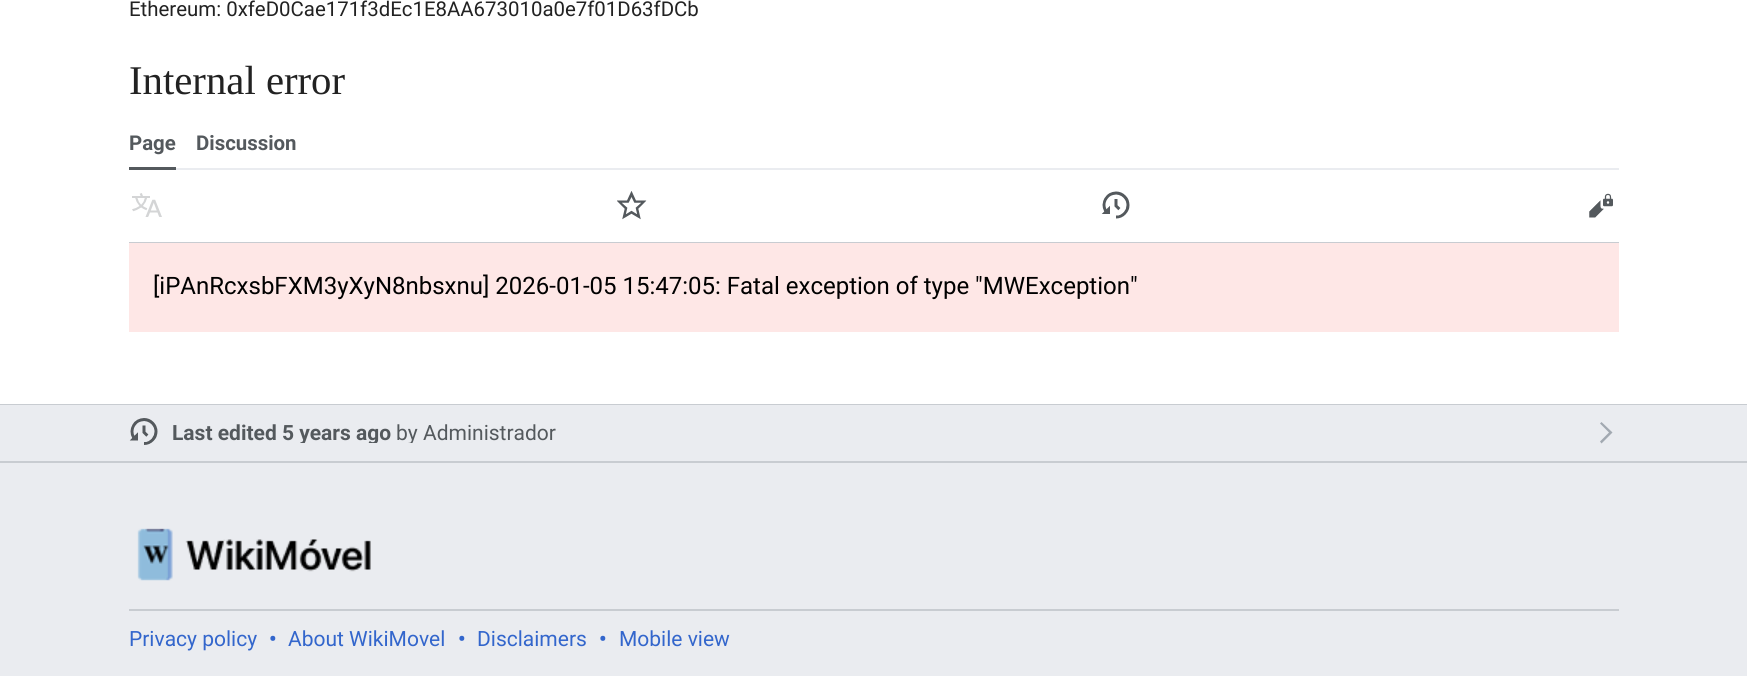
#include <cairo/cairo.h>
#include <math.h>
#include <stddef.h>

static cairo_t *cr;

static void use_color(int r, int g, int b) {
  cairo_set_source_rgb(cr, r / 255.0, g / 255.0, b / 255.0);
}

static void text(double x, double y, const char *s, const char *family, double size, int italic, int bold, int r, int g, int b) {
  cairo_select_font_face(cr, family, italic ? CAIRO_FONT_SLANT_ITALIC : CAIRO_FONT_SLANT_NORMAL,
    bold ? CAIRO_FONT_WEIGHT_BOLD : CAIRO_FONT_WEIGHT_NORMAL);
  cairo_set_font_size(cr, size);
  use_color(r, g, b);
  cairo_move_to(cr, x, y);
  cairo_show_text(cr, s);
}

static void box(double x, double y, double w, double h, int r, int g, int b) {
  use_color(r, g, b);
  cairo_rectangle(cr, x, y, w, h);
  cairo_fill(cr);
}

static void picture(const char *path, double x, double y, double w, double h) {
  cairo_surface_t *image = cairo_image_surface_create_from_png(path);
  cairo_save(cr);
  cairo_set_source_surface(cr, image, x, y);
  cairo_rectangle(cr, x, y, w, h);
  cairo_fill(cr);
  cairo_restore(cr);
  cairo_surface_destroy(image);
}

static void draw(void) {
  use_color(234, 236, 240);
  cairo_paint(cr);
  box(0, 0, 1747, 404, 255, 255, 255);
  box(129, 167, 47, 3, 84, 89, 93);
  box(176, 168, 1443, 2, 234, 236, 240);
  box(129, 242, 1490, 1, 200, 204, 209);
  picture("img_01.png", 132, 193, 30, 24);
  picture("img_02.png", 617, 191, 30, 29);
  picture("img_03.png", 1101, 191, 29, 28);
  picture("img_04.png", 1589, 193, 24, 25);
  box(129, 243, 1490, 89, 254, 231, 230);
  box(0, 404, 1747, 1, 200, 204, 209);
  box(0, 461, 1747, 2, 200, 204, 209);
  picture("img_05.png", 129, 418, 29, 27);
  use_color(162, 169, 177);
  cairo_new_path(cr);
  cairo_move_to(cr, 1600, 423.5);
  cairo_line_to(cr, 1609, 432.5);
  cairo_line_to(cr, 1600, 441.5);
  cairo_line_to(cr, 1601.5, 443.5);
  cairo_line_to(cr, 1612.5, 432.5);
  cairo_line_to(cr, 1601.5, 422);
  cairo_close_path(cr);
  cairo_fill(cr);
  box(129, 609, 1490, 2, 200, 204, 209);
  picture("img_06.png", 137, 528, 234, 53);
  text(129, 16, "Ethereum: 0xfeD0Cae171f3dEc1E8AA673010a0e7f01D63fDCb", "Roboto", 20.4, 0, 0, 34, 34, 34);
  text(129, 94, "Internal error", "Liberation Serif", 40.75, 0, 0, 34, 34, 34);
  text(129, 150, "Page", "Roboto", 20.4, 0, 1, 84, 89, 93);
  text(196, 150, "Discussion", "Roboto", 20.4, 0, 1, 84, 89, 93);
  text(153, 294, "[iPAnRcxsbFXM3yXyN8nbsxnu] 2026-01-05 15:47:05: Fatal exception of type \"MWException\"", "Roboto", 24, 0, 0, 0, 0, 0);
  cairo_save(cr);
  cairo_rectangle(cr, 159, 422, 1436, 21);
  cairo_clip(cr);
  text(172, 440, "Last edited 5 years ago", "Roboto", 21, 0, 1, 84, 89, 93);
  text(396, 440, "by", "Roboto", 21, 0, 0, 84, 89, 93);
  cairo_restore(cr);
  text(423, 440, "Administrador", "Roboto", 21, 0, 0, 84, 89, 93);
  text(129, 646, "Privacy policy", "Roboto", 21, 0, 0, 51, 102, 204);
  text(269, 646, "•", "Roboto", 21, 0, 1, 51, 102, 204);
  text(288, 646, "About WikiMovel", "Roboto", 21, 0, 0, 51, 102, 204);
  text(458, 646, "•", "Roboto", 21, 0, 1, 51, 102, 204);
  text(477, 646, "Disclaimers", "Roboto", 21, 0, 0, 51, 102, 204);
  text(599, 646, "•", "Roboto", 21, 0, 1, 51, 102, 204);
  text(619, 646, "Mobile view", "Roboto", 21, 0, 0, 51, 102, 204);
}

int main(void) {
  cairo_surface_t *surface = cairo_image_surface_create(CAIRO_FORMAT_RGB24, 1747, 676);
  cr = cairo_create(surface);
  cairo_font_options_t *options = cairo_font_options_create();
  cairo_font_options_set_hint_metrics(options, CAIRO_HINT_METRICS_OFF);
  cairo_font_options_set_hint_style(options, CAIRO_HINT_STYLE_NONE);
  cairo_set_font_options(cr, options);
  cairo_set_miter_limit(cr, 4);
  draw();
  cairo_surface_write_to_png(surface, "out.png");
  cairo_font_options_destroy(options);
  cairo_destroy(cr);
  cairo_surface_destroy(surface);
  return 0;
}
